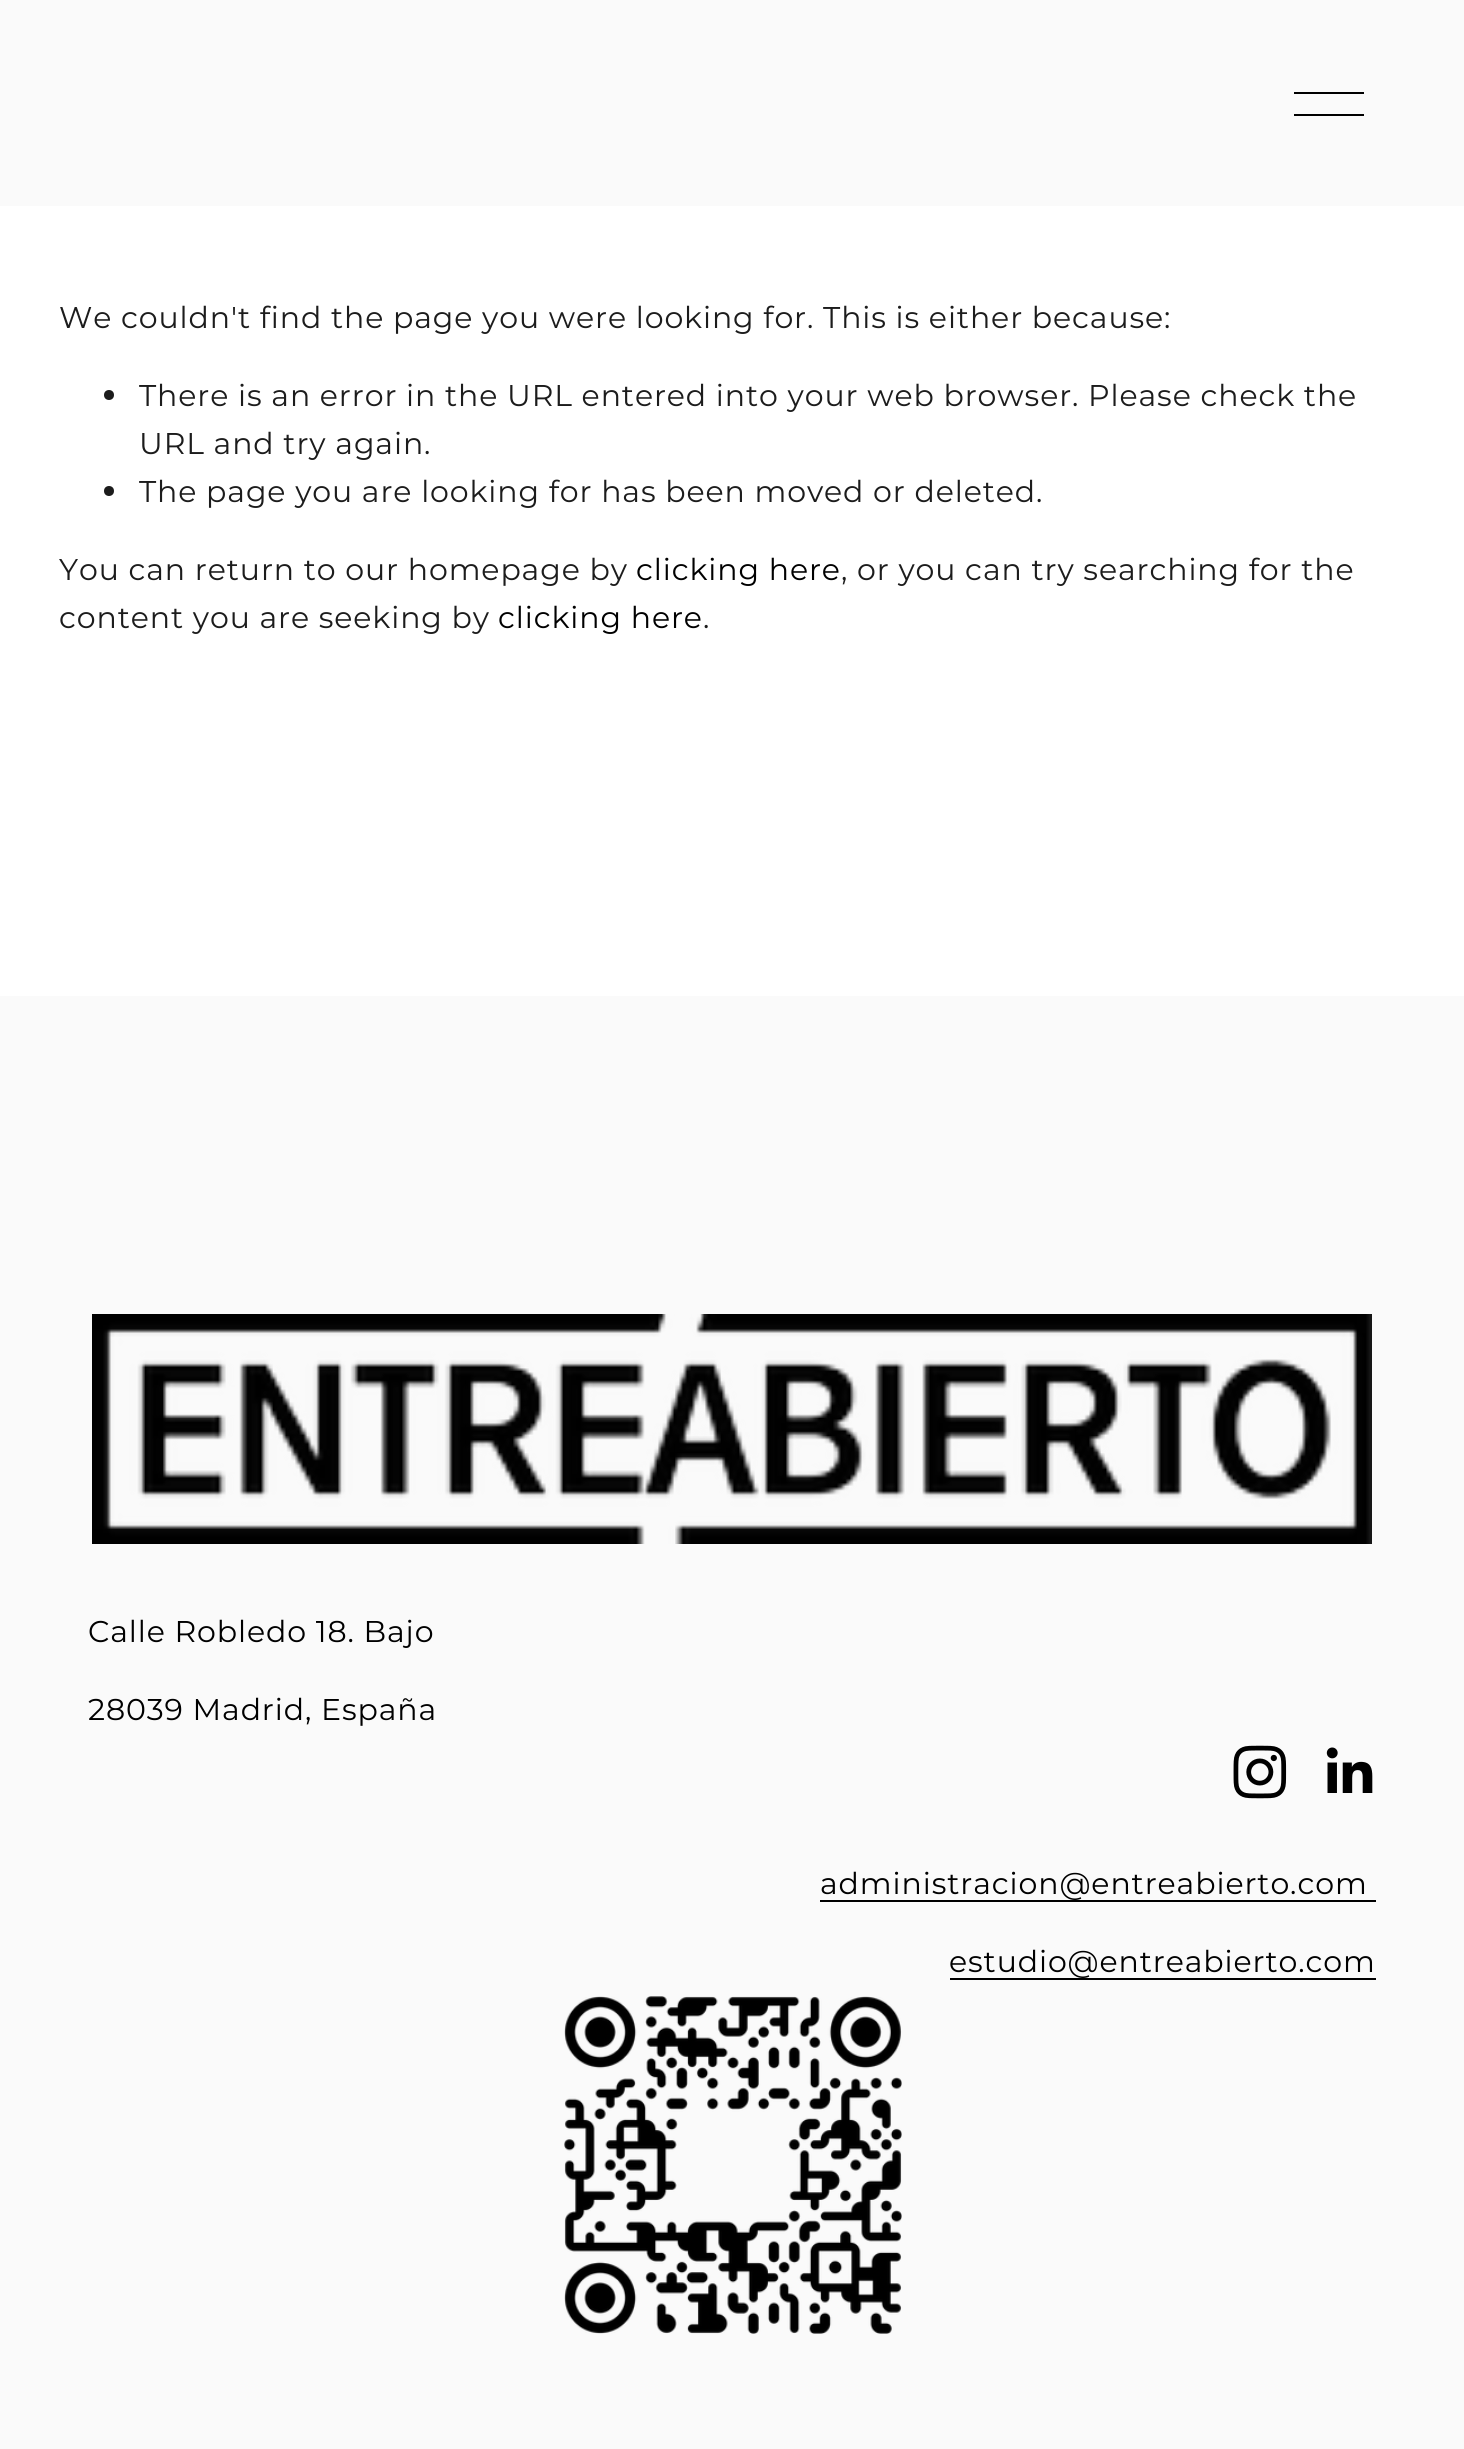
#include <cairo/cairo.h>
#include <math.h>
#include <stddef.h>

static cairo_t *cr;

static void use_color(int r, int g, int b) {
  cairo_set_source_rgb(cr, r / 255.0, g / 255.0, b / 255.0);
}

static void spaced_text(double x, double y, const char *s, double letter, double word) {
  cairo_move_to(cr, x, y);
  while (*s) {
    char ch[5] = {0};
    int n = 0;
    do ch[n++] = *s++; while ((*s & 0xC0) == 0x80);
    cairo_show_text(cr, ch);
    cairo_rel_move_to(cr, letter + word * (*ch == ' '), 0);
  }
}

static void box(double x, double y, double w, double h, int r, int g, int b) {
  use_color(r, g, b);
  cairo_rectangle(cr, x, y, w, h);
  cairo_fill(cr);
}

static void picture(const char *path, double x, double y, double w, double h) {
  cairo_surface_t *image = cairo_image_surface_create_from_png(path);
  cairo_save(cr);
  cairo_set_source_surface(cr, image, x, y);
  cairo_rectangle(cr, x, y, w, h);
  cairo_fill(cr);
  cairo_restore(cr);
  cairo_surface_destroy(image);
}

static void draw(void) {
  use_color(255, 255, 255);
  cairo_paint(cr);
  box(0, 0, 1464, 206, 250, 250, 250);
  box(1294, 92, 70, 2, 0, 0, 0);
  box(1294, 114, 70, 2, 0, 0, 0);
  use_color(28, 28, 28);
  cairo_arc(cr, 109, 395, 5, 0, 2 * M_PI);
  cairo_fill(cr);
  cairo_arc(cr, 109, 491, 5, 0, 2 * M_PI);
  cairo_fill(cr);
  box(0, 996, 1464, 1453, 250, 250, 250);
  picture("img_01.png", 92, 1314, 1280, 230);
  picture("img_02.png", 1233, 1745, 54, 54);
  picture("img_03.png", 1326, 1747, 47, 46);
  box(820, 1900, 556, 2, 0, 0, 0);
  box(950, 1978, 426, 2, 0, 0, 0);
  picture("img_04.png", 564, 1996, 338, 338);
  cairo_select_font_face(cr, "Montserrat", CAIRO_FONT_SLANT_NORMAL, CAIRO_FONT_WEIGHT_NORMAL);
  cairo_set_font_size(cr, 30);
  use_color(28, 28, 28);
  spaced_text(59, 328, "We couldn't find the page you were looking for. This is either because:", 0.9, 0);
  spaced_text(139, 406, "There is an error in the URL entered into your web browser. Please check the", 0.9, 0);
  spaced_text(139, 454, "URL and try again.", 0.9, 0);
  spaced_text(139, 502, "The page you are looking for has been moved or deleted.", 0.9, 0);
  spaced_text(59, 580, "You can return to our homepage by", 0.9, 0);
  use_color(0, 0, 0);
  spaced_text(636, 580, "clicking here", 0.9, 0);
  use_color(28, 28, 28);
  spaced_text(841, 580, ", or you can try searching for the", 0.9, 0);
  spaced_text(59, 628, "content you are seeking by", 0.9, 0);
  use_color(0, 0, 0);
  spaced_text(498, 628, "clicking here", 0.9, 0);
  use_color(28, 28, 28);
  spaced_text(703, 628, ".", 0.9, 0);
  use_color(0, 0, 0);
  spaced_text(88, 1642, "Calle Robledo 18. Bajo", 0.9, 0);
  spaced_text(88, 1720, "28039 Madrid, España", 0.9, 0);
  spaced_text(820, 1894, "administracion@entreabierto.com", 0.9, 0);
  spaced_text(949, 1972, "estudio@entreabierto.com", 0.9, 0);
}

int main(void) {
  cairo_surface_t *surface = cairo_image_surface_create(CAIRO_FORMAT_RGB24, 1464, 2449);
  cr = cairo_create(surface);
  cairo_font_options_t *options = cairo_font_options_create();
  cairo_font_options_set_hint_metrics(options, CAIRO_HINT_METRICS_OFF);
  cairo_font_options_set_hint_style(options, CAIRO_HINT_STYLE_NONE);
  cairo_set_font_options(cr, options);
  cairo_set_miter_limit(cr, 4);
  draw();
  cairo_surface_write_to_png(surface, "out.png");
  cairo_font_options_destroy(options);
  cairo_destroy(cr);
  cairo_surface_destroy(surface);
  return 0;
}
